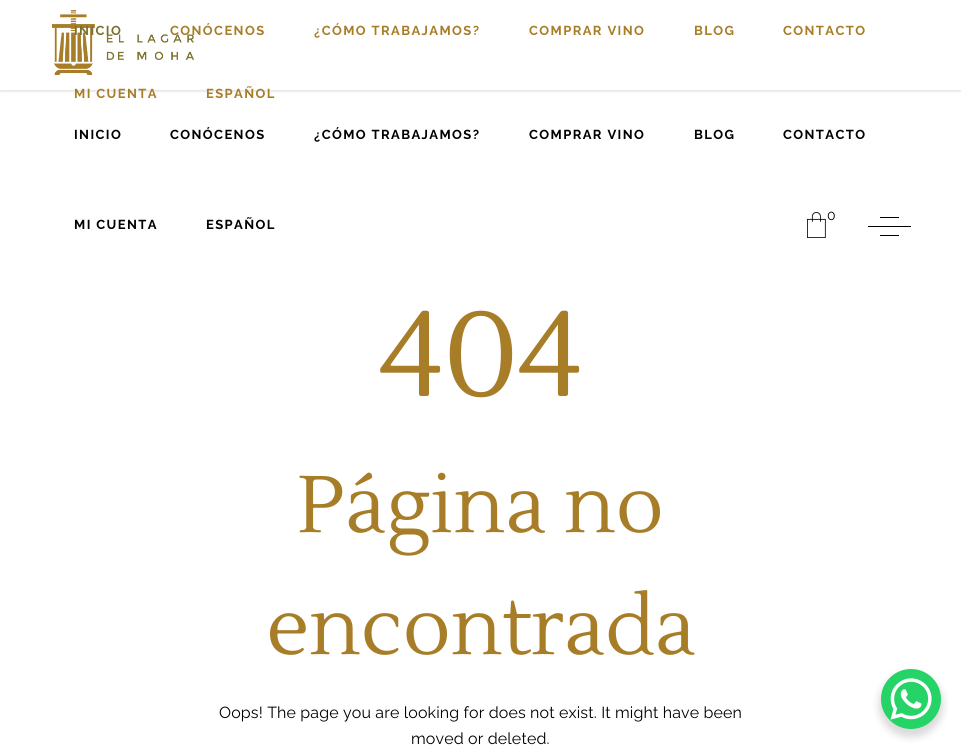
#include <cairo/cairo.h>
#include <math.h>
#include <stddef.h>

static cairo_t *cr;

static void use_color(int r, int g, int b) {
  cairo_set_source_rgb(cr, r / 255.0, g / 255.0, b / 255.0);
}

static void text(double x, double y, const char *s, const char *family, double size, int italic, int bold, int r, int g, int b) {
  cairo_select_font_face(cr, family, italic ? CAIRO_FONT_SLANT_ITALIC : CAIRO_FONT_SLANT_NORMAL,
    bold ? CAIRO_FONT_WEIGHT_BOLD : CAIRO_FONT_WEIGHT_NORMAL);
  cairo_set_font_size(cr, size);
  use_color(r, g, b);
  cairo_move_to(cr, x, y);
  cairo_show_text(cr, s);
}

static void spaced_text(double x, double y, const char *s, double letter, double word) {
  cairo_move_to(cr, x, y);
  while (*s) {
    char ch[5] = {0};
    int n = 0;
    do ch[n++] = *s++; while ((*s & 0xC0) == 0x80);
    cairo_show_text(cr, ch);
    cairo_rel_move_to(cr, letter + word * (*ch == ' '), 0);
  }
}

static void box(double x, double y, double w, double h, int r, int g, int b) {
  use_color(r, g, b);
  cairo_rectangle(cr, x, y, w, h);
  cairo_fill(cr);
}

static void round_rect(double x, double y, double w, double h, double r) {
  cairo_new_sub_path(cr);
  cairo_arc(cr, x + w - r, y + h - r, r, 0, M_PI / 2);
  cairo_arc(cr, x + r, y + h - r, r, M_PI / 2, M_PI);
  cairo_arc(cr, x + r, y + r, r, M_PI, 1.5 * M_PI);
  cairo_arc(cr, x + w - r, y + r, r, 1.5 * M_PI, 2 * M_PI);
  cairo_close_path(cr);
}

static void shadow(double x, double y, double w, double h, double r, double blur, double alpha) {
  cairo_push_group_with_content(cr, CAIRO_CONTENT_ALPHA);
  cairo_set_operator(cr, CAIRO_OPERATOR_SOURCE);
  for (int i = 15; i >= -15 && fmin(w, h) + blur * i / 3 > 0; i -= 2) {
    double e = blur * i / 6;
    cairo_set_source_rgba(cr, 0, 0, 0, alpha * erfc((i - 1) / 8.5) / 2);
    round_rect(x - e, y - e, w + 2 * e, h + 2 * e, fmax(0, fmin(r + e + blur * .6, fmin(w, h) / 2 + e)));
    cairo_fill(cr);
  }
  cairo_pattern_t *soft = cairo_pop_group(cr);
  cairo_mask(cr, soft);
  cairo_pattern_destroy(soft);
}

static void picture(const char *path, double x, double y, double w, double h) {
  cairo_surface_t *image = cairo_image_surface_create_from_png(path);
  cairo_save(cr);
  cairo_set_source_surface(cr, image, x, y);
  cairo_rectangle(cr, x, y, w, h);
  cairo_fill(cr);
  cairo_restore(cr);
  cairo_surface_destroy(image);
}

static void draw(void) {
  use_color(255, 255, 255);
  cairo_paint(cr);
  cairo_save(cr);
  cairo_rectangle(cr, 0, 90, 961, 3);
  cairo_clip(cr);
  use_color(0, 0, 0);
  shadow(0, 1, 961, 90, 0, 1.5, 0.15);
  cairo_restore(cr);
  picture("img_01.png", 52, 10, 142, 65);
  picture("img_02.png", 807, 212, 19, 26);
  box(880, 217, 19, 1, 0, 0, 0);
  box(868, 226, 43, 1, 0, 0, 0);
  box(880, 235, 19, 1, 0, 0, 0);
  use_color(0, 0, 0);
  shadow(879, 673, 64, 64, 32, 4, 0.15);
  use_color(37, 211, 102);
  cairo_arc(cr, 911, 699, 30, 0, 2 * M_PI);
  cairo_fill(cr);
  picture("img_03.png", 890, 678, 42, 42);
  cairo_select_font_face(cr, "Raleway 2 Thin", CAIRO_FONT_SLANT_NORMAL, CAIRO_FONT_WEIGHT_NORMAL);
  cairo_set_font_size(cr, 13);
  use_color(121, 114, 45);
  spaced_text(74, 35, "INICIO", 1.4, 0);
  use_color(168, 125, 40);
  spaced_text(170, 35, "CONÓCENOS", 1.4, 0);
  spaced_text(314, 35, "¿CÓMO TRABAJAMOS?", 1.4, 0);
  spaced_text(529, 35, "COMPRAR VINO", 1.4, 0);
  spaced_text(694, 35, "BLOG", 1.4, 0);
  spaced_text(783, 35, "CONTACTO", 1.4, 0);
  spaced_text(74, 98, "MI CUENTA", 1.4, 0);
  spaced_text(206, 98, "ESPAÑOL", 1.4, 0);
  use_color(0, 0, 0);
  spaced_text(74, 139, "INICIO", 1.4, 0);
  spaced_text(170, 139, "CONÓCENOS", 1.4, 0);
  spaced_text(314, 139, "¿CÓMO TRABAJAMOS?", 1.4, 0);
  spaced_text(529, 139, "COMPRAR VINO", 1.4, 0);
  spaced_text(694, 139, "BLOG", 1.4, 0);
  spaced_text(783, 139, "CONTACTO", 1.4, 0);
  spaced_text(74, 229, "MI CUENTA", 1.4, 0);
  spaced_text(206, 229, "ESPAÑOL", 1.4, 0);
  text(827, 220, "0", "Raleway Thin", 14, 0, 0, 0, 0, 0);
  text(379, 396, "404", "Lustria", 120, 0, 0, 168, 125, 40);
  text(297, 532, "Página no", "Lustria", 80, 0, 0, 168, 125, 40);
  text(266, 654, "encontrada", "Lustria", 80, 0, 0, 168, 125, 40);
  cairo_select_font_face(cr, "Raleway Thin", CAIRO_FONT_SLANT_NORMAL, CAIRO_FONT_WEIGHT_NORMAL);
  cairo_set_font_size(cr, 16);
  use_color(0, 0, 0);
  spaced_text(219, 718, "Oops! The page you are looking for does not exist. It might have been", 0.15, 0);
  spaced_text(411, 744, "moved or deleted.", 0.15, 0);
}

int main(void) {
  cairo_surface_t *surface = cairo_image_surface_create(CAIRO_FORMAT_RGB24, 961, 749);
  cr = cairo_create(surface);
  cairo_font_options_t *options = cairo_font_options_create();
  cairo_font_options_set_hint_metrics(options, CAIRO_HINT_METRICS_OFF);
  cairo_font_options_set_hint_style(options, CAIRO_HINT_STYLE_NONE);
  cairo_set_font_options(cr, options);
  cairo_set_miter_limit(cr, 4);
  draw();
  cairo_surface_write_to_png(surface, "out.png");
  cairo_font_options_destroy(options);
  cairo_destroy(cr);
  cairo_surface_destroy(surface);
  return 0;
}
